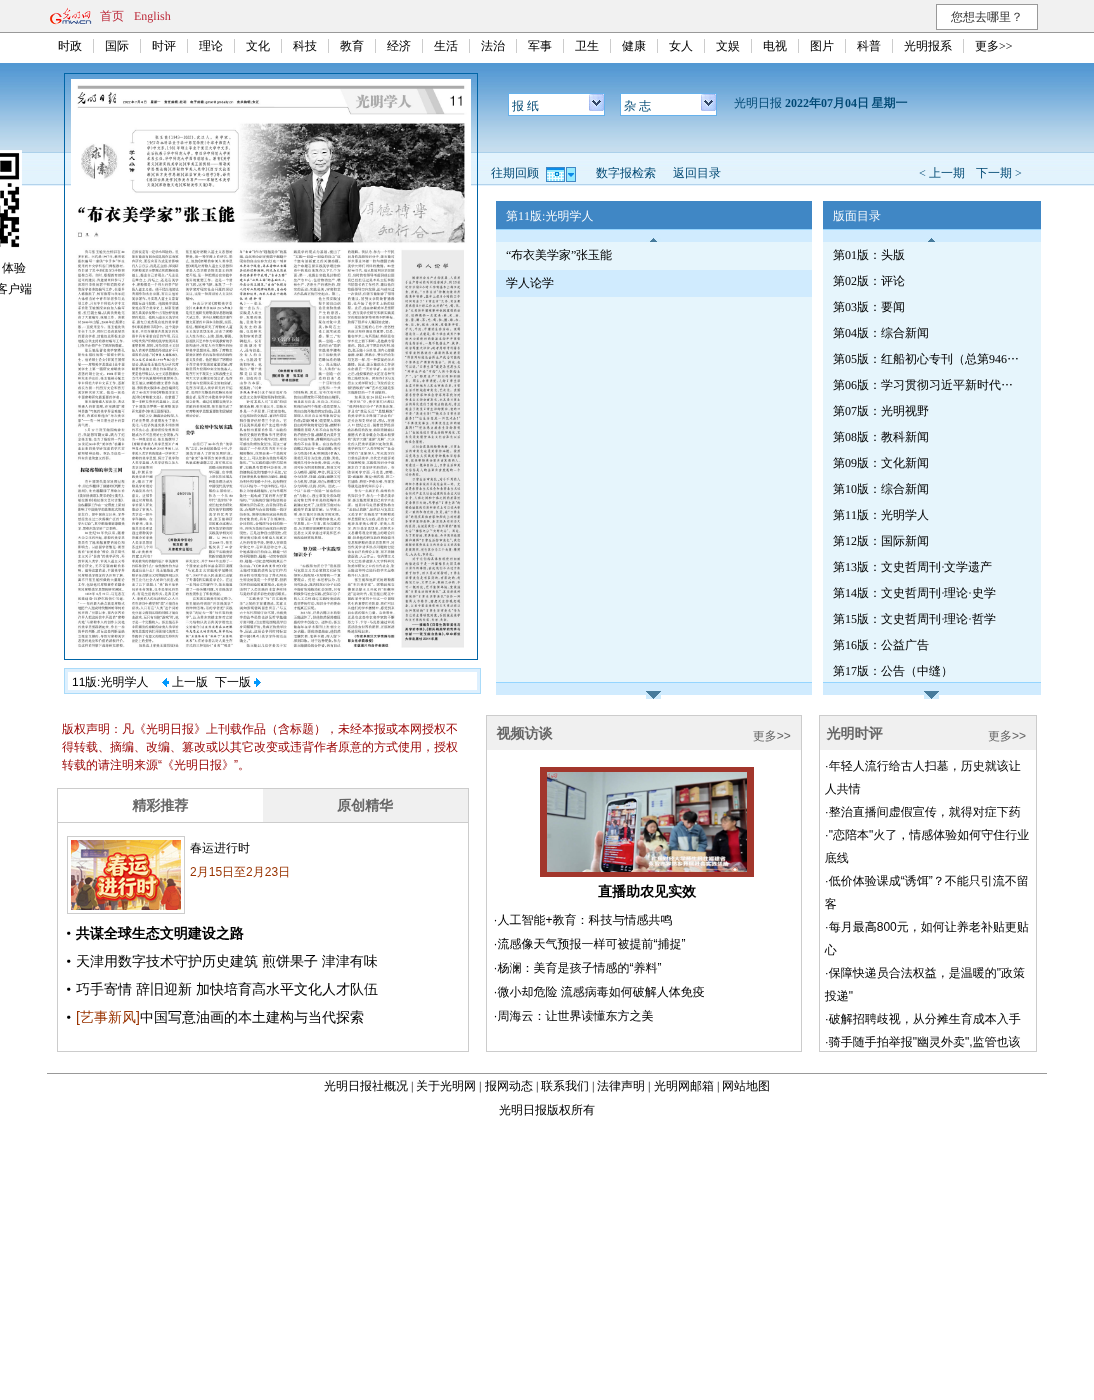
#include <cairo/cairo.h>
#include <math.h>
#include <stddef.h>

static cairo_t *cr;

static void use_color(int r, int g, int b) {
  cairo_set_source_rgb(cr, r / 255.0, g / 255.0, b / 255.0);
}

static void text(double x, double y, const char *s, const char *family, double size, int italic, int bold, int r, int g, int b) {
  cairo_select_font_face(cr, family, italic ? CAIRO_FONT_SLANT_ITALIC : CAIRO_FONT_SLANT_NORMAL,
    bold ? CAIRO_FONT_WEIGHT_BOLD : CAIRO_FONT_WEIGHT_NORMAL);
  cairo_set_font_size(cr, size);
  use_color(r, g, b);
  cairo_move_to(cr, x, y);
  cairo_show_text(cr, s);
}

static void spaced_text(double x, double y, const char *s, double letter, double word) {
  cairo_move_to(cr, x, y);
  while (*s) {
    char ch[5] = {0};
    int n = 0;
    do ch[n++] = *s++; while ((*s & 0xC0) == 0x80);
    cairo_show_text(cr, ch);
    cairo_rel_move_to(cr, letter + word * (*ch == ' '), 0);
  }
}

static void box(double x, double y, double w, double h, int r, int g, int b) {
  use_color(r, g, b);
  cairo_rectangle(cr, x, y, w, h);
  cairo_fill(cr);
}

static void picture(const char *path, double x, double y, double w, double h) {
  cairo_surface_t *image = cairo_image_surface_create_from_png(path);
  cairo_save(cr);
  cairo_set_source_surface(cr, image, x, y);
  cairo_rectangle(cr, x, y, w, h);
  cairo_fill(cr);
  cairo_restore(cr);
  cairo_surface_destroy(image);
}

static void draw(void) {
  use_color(255, 255, 255);
  cairo_paint(cr);
  box(0, 0, 1094, 32, 241, 241, 241);
  box(0, 32, 1094, 1, 153, 153, 153);
  picture("img_01.png", 49, 7, 43, 18);
  use_color(255, 255, 255);
  cairo_rectangle(cr, 936.5, 4.5, 101, 25);
  cairo_fill_preserve(cr);
  use_color(153, 153, 153);
  cairo_set_line_width(cr, 1);
  cairo_stroke(cr);
  box(93, 39, 1, 14, 204, 204, 204);
  box(140, 39, 1, 14, 204, 204, 204);
  box(187, 39, 1, 14, 204, 204, 204);
  box(234, 39, 1, 14, 204, 204, 204);
  box(281, 39, 1, 14, 204, 204, 204);
  box(328, 39, 1, 14, 204, 204, 204);
  box(375, 39, 1, 14, 204, 204, 204);
  box(422, 39, 1, 14, 204, 204, 204);
  box(469, 39, 1, 14, 204, 204, 204);
  box(516, 39, 1, 14, 204, 204, 204);
  box(563, 39, 1, 14, 204, 204, 204);
  box(610, 39, 1, 14, 204, 204, 204);
  box(657, 39, 1, 14, 204, 204, 204);
  box(704, 39, 1, 14, 204, 204, 204);
  box(751, 39, 1, 14, 204, 204, 204);
  box(798, 39, 1, 14, 204, 204, 204);
  box(845, 39, 1, 14, 204, 204, 204);
  box(892, 39, 1, 14, 204, 204, 204);
  box(963, 39, 1, 14, 204, 204, 204);
  picture("img_02.png", 0, 63, 1094, 89);
  box(21, 152, 1073, 1, 172, 208, 234);
  use_color(255, 255, 255);
  cairo_rectangle(cr, 508.5, 93.5, 96, 22);
  cairo_fill_preserve(cr);
  use_color(102, 177, 235);
  cairo_stroke(cr);
  picture("img_03.png", 589, 94, 15, 17);
  use_color(255, 255, 255);
  cairo_rectangle(cr, 620.5, 93.5, 96, 22);
  cairo_fill_preserve(cr);
  use_color(102, 177, 235);
  cairo_stroke(cr);
  picture("img_03.png", 701, 94, 15, 17);
  picture("img_10.png", 21, 153, 1073, 33);
  picture("img_04.png", 546, 167, 30, 15);
  box(496, 201, 316, 28, 64, 135, 197);
  box(496, 230, 316, 12, 208, 235, 254);
  box(496, 229, 316, 1, 148, 213, 255);
  picture("img_05.png", 646, 238, 15, 4);
  box(496, 297, 316, 385, 230, 245, 252);
  box(496, 242, 316, 28, 230, 245, 252);
  box(496, 270, 316, 27, 208, 235, 254);
  box(496, 683, 316, 12, 208, 235, 254);
  box(496, 682, 316, 1, 148, 213, 255);
  picture("img_06.png", 646, 691, 15, 8);
  box(823, 201, 218, 28, 64, 135, 197);
  box(823, 230, 218, 12, 208, 235, 254);
  box(823, 229, 218, 1, 148, 213, 255);
  picture("img_05.png", 924, 238, 15, 4);
  box(823, 242, 218, 440, 230, 245, 252);
  box(823, 683, 218, 12, 208, 235, 254);
  box(823, 682, 218, 1, 148, 213, 255);
  picture("img_06.png", 924, 691, 15, 8);
  cairo_rectangle(cr, 64.5, 73.5, 413, 586);
  use_color(0, 101, 167);
  cairo_stroke(cr);
  picture("img_07.png", 71, 79, 400, 569);
  cairo_rectangle(cr, 64.5, 668.5, 416, 25);
  use_color(170, 219, 249);
  cairo_stroke(cr);
  cairo_rectangle(cr, 66.5, 670.5, 412, 21);
  use_color(222, 240, 254);
  cairo_set_line_width(cr, 3);
  cairo_stroke(cr);
  picture("img_08.png", 162, 678, 7, 9);
  picture("img_09.png", 254, 678, 7, 9);
  picture("img_11.png", 0, 150, 22, 98);
  picture("img_12.png", 57, 715, 980, 337);
  box(47, 1073, 1000, 1, 153, 153, 153);
  text(100, 20, "首页", "WenQuanYi Zen Hei Medium", 12, 0, 0, 187, 39, 55);
  text(134, 20, "English", "Liberation Serif", 12, 0, 0, 187, 39, 55);
  text(951, 21, "您想去哪里？", "WenQuanYi Zen Hei Medium", 12, 0, 0, 51, 51, 51);
  text(58, 50, "时政", "WenQuanYi Zen Hei Medium", 12, 0, 0, 0, 0, 0);
  text(105, 50, "国际", "WenQuanYi Zen Hei Medium", 12, 0, 0, 0, 0, 0);
  text(152, 50, "时评", "WenQuanYi Zen Hei Medium", 12, 0, 0, 0, 0, 0);
  text(199, 50, "理论", "WenQuanYi Zen Hei Medium", 12, 0, 0, 0, 0, 0);
  text(246, 50, "文化", "WenQuanYi Zen Hei Medium", 12, 0, 0, 0, 0, 0);
  text(293, 50, "科技", "WenQuanYi Zen Hei Medium", 12, 0, 0, 0, 0, 0);
  text(340, 50, "教育", "WenQuanYi Zen Hei Medium", 12, 0, 0, 0, 0, 0);
  text(387, 50, "经济", "WenQuanYi Zen Hei Medium", 12, 0, 0, 0, 0, 0);
  text(434, 50, "生活", "WenQuanYi Zen Hei Medium", 12, 0, 0, 0, 0, 0);
  text(481, 50, "法治", "WenQuanYi Zen Hei Medium", 12, 0, 0, 0, 0, 0);
  text(528, 50, "军事", "WenQuanYi Zen Hei Medium", 12, 0, 0, 0, 0, 0);
  text(575, 50, "卫生", "WenQuanYi Zen Hei Medium", 12, 0, 0, 0, 0, 0);
  text(622, 50, "健康", "WenQuanYi Zen Hei Medium", 12, 0, 0, 0, 0, 0);
  text(669, 50, "女人", "WenQuanYi Zen Hei Medium", 12, 0, 0, 0, 0, 0);
  text(716, 50, "文娱", "WenQuanYi Zen Hei Medium", 12, 0, 0, 0, 0, 0);
  text(763, 50, "电视", "WenQuanYi Zen Hei Medium", 12, 0, 0, 0, 0, 0);
  text(810, 50, "图片", "WenQuanYi Zen Hei Medium", 12, 0, 0, 0, 0, 0);
  text(857, 50, "科普", "WenQuanYi Zen Hei Medium", 12, 0, 0, 0, 0, 0);
  text(904, 50, "光明报系", "WenQuanYi Zen Hei Medium", 12, 0, 0, 0, 0, 0);
  text(975, 50, "更多", "WenQuanYi Zen Hei Medium", 12, 0, 0, 0, 0, 0);
  text(999, 50, ">>", "Liberation Serif", 12, 0, 0, 0, 0, 0);
  text(512, 110, "报", "WenQuanYi Zen Hei Medium", 12, 0, 0, 0, 72, 115);
  text(527, 110, "纸", "WenQuanYi Zen Hei Medium", 12, 0, 0, 0, 72, 115);
  text(624, 110, "杂", "WenQuanYi Zen Hei Medium", 12, 0, 0, 0, 72, 115);
  text(639, 110, "志", "WenQuanYi Zen Hei Medium", 12, 0, 0, 0, 72, 115);
  text(734, 107, "光明日报", "WenQuanYi Zen Hei Medium", 12, 0, 0, 0, 72, 115);
  text(785, 107, "2022", "Liberation Serif", 12, 0, 1, 0, 72, 115);
  text(809, 107, "年", "WenQuanYi Zen Hei", 12, 0, 1, 0, 72, 115);
  text(821, 107, "07", "Liberation Serif", 12, 0, 1, 0, 72, 115);
  text(833, 107, "月", "WenQuanYi Zen Hei", 12, 0, 1, 0, 72, 115);
  text(845, 107, "04", "Liberation Serif", 12, 0, 1, 0, 72, 115);
  cairo_select_font_face(cr, "WenQuanYi Zen Hei", CAIRO_FONT_SLANT_NORMAL, CAIRO_FONT_WEIGHT_BOLD);
  spaced_text(857, 107, "日 星期一", 0, -1);
  text(491, 177, "往期回顾", "WenQuanYi Zen Hei Medium", 12, 0, 0, 0, 72, 115);
  text(596, 177, "数字报检索", "WenQuanYi Zen Hei Medium", 12, 0, 0, 0, 72, 115);
  text(673, 177, "返回目录", "WenQuanYi Zen Hei Medium", 12, 0, 0, 0, 72, 115);
  text(919, 177, "<", "Liberation Serif", 12, 0, 0, 0, 72, 115);
  text(929, 177, "上一期", "WenQuanYi Zen Hei Medium", 12, 0, 0, 0, 72, 115);
  text(976, 177, "下一期", "WenQuanYi Zen Hei Medium", 12, 0, 0, 0, 72, 115);
  text(1015, 177, ">", "Liberation Serif", 12, 0, 0, 0, 72, 115);
  text(506, 220, "第", "WenQuanYi Zen Hei Medium", 12, 0, 0, 255, 255, 255);
  text(518, 220, "11", "Liberation Serif", 12, 0, 0, 255, 255, 255);
  text(530, 220, "版 光明学人", "WenQuanYi Zen Hei Medium", 12, 0, 0, 255, 255, 255);
  text(542, 220, ":", "Liberation Serif", 12, 0, 0, 255, 255, 255);
  text(506, 259, "“", "Liberation Serif", 12, 0, 0, 0, 0, 0);
  text(511, 259, "布衣美学家", "WenQuanYi Zen Hei Medium", 12, 0, 0, 0, 0, 0);
  text(571, 259, "”", "Liberation Serif", 12, 0, 0, 0, 0, 0);
  text(576, 259, "张玉能", "WenQuanYi Zen Hei Medium", 12, 0, 0, 0, 0, 0);
  text(506, 287, "学人论学", "WenQuanYi Zen Hei Medium", 12, 0, 0, 0, 0, 0);
  text(833, 220, "版面目录", "WenQuanYi Zen Hei Medium", 12, 0, 0, 255, 255, 255);
  text(833, 259, "第", "WenQuanYi Zen Hei Medium", 12, 0, 0, 0, 0, 0);
  text(845, 259, "01", "Liberation Serif", 12, 0, 0, 0, 0, 0);
  text(857, 259, "版：头版", "WenQuanYi Zen Hei Medium", 12, 0, 0, 0, 0, 0);
  text(833, 285, "第", "WenQuanYi Zen Hei Medium", 12, 0, 0, 0, 0, 0);
  text(845, 285, "02", "Liberation Serif", 12, 0, 0, 0, 0, 0);
  text(857, 285, "版：评论", "WenQuanYi Zen Hei Medium", 12, 0, 0, 0, 0, 0);
  text(833, 311, "第", "WenQuanYi Zen Hei Medium", 12, 0, 0, 0, 0, 0);
  text(845, 311, "03", "Liberation Serif", 12, 0, 0, 0, 0, 0);
  text(857, 311, "版：要闻", "WenQuanYi Zen Hei Medium", 12, 0, 0, 0, 0, 0);
  text(833, 337, "第", "WenQuanYi Zen Hei Medium", 12, 0, 0, 0, 0, 0);
  text(845, 337, "04", "Liberation Serif", 12, 0, 0, 0, 0, 0);
  text(857, 337, "版：综合新闻", "WenQuanYi Zen Hei Medium", 12, 0, 0, 0, 0, 0);
  text(833, 363, "第", "WenQuanYi Zen Hei Medium", 12, 0, 0, 0, 0, 0);
  text(845, 363, "05", "Liberation Serif", 12, 0, 0, 0, 0, 0);
  text(857, 363, "版：红船初心专刊（总第", "WenQuanYi Zen Hei Medium", 12, 0, 0, 0, 0, 0);
  text(989, 363, "946", "Liberation Serif", 12, 0, 0, 0, 0, 0);
  text(1007, 363, "…", "WenQuanYi Zen Hei Medium", 12, 0, 0, 0, 0, 0);
  text(833, 389, "第", "WenQuanYi Zen Hei Medium", 12, 0, 0, 0, 0, 0);
  text(845, 389, "06", "Liberation Serif", 12, 0, 0, 0, 0, 0);
  text(857, 389, "版：学习贯彻习近平新时代…", "WenQuanYi Zen Hei Medium", 12, 0, 0, 0, 0, 0);
  text(833, 415, "第", "WenQuanYi Zen Hei Medium", 12, 0, 0, 0, 0, 0);
  text(845, 415, "07", "Liberation Serif", 12, 0, 0, 0, 0, 0);
  text(857, 415, "版：光明视野", "WenQuanYi Zen Hei Medium", 12, 0, 0, 0, 0, 0);
  text(833, 441, "第", "WenQuanYi Zen Hei Medium", 12, 0, 0, 0, 0, 0);
  text(845, 441, "08", "Liberation Serif", 12, 0, 0, 0, 0, 0);
  text(857, 441, "版：教科新闻", "WenQuanYi Zen Hei Medium", 12, 0, 0, 0, 0, 0);
  text(833, 467, "第", "WenQuanYi Zen Hei Medium", 12, 0, 0, 0, 0, 0);
  text(845, 467, "09", "Liberation Serif", 12, 0, 0, 0, 0, 0);
  text(857, 467, "版：文化新闻", "WenQuanYi Zen Hei Medium", 12, 0, 0, 0, 0, 0);
  text(833, 493, "第", "WenQuanYi Zen Hei Medium", 12, 0, 0, 0, 0, 0);
  text(845, 493, "10", "Liberation Serif", 12, 0, 0, 0, 0, 0);
  text(857, 493, "版：综合新闻", "WenQuanYi Zen Hei Medium", 12, 0, 0, 0, 0, 0);
  text(833, 519, "第", "WenQuanYi Zen Hei Medium", 12, 0, 0, 0, 0, 0);
  text(845, 519, "11", "Liberation Serif", 12, 0, 0, 0, 0, 0);
  text(857, 519, "版：光明学人", "WenQuanYi Zen Hei Medium", 12, 0, 0, 0, 0, 0);
  text(833, 545, "第", "WenQuanYi Zen Hei Medium", 12, 0, 0, 0, 0, 0);
  text(845, 545, "12", "Liberation Serif", 12, 0, 0, 0, 0, 0);
  text(857, 545, "版：国际新闻", "WenQuanYi Zen Hei Medium", 12, 0, 0, 0, 0, 0);
  text(833, 571, "第", "WenQuanYi Zen Hei Medium", 12, 0, 0, 0, 0, 0);
  text(845, 571, "13", "Liberation Serif", 12, 0, 0, 0, 0, 0);
  text(857, 571, "版：文史哲周刊", "WenQuanYi Zen Hei Medium", 12, 0, 0, 0, 0, 0);
  text(941, 571, "·", "Liberation Serif", 12, 0, 0, 0, 0, 0);
  text(944, 571, "文学遗产", "WenQuanYi Zen Hei Medium", 12, 0, 0, 0, 0, 0);
  text(833, 597, "第", "WenQuanYi Zen Hei Medium", 12, 0, 0, 0, 0, 0);
  text(845, 597, "14", "Liberation Serif", 12, 0, 0, 0, 0, 0);
  text(857, 597, "版：文史哲周刊", "WenQuanYi Zen Hei Medium", 12, 0, 0, 0, 0, 0);
  text(941, 597, "·", "Liberation Serif", 12, 0, 0, 0, 0, 0);
  text(944, 597, "理论", "WenQuanYi Zen Hei Medium", 12, 0, 0, 0, 0, 0);
  text(968, 597, "·", "Liberation Serif", 12, 0, 0, 0, 0, 0);
  text(972, 597, "史学", "WenQuanYi Zen Hei Medium", 12, 0, 0, 0, 0, 0);
  text(833, 623, "第", "WenQuanYi Zen Hei Medium", 12, 0, 0, 0, 0, 0);
  text(845, 623, "15", "Liberation Serif", 12, 0, 0, 0, 0, 0);
  text(857, 623, "版：文史哲周刊", "WenQuanYi Zen Hei Medium", 12, 0, 0, 0, 0, 0);
  text(941, 623, "·", "Liberation Serif", 12, 0, 0, 0, 0, 0);
  text(944, 623, "理论", "WenQuanYi Zen Hei Medium", 12, 0, 0, 0, 0, 0);
  text(968, 623, "·", "Liberation Serif", 12, 0, 0, 0, 0, 0);
  text(972, 623, "哲学", "WenQuanYi Zen Hei Medium", 12, 0, 0, 0, 0, 0);
  text(833, 649, "第", "WenQuanYi Zen Hei Medium", 12, 0, 0, 0, 0, 0);
  text(845, 649, "16", "Liberation Serif", 12, 0, 0, 0, 0, 0);
  text(857, 649, "版：公益广告", "WenQuanYi Zen Hei Medium", 12, 0, 0, 0, 0, 0);
  text(833, 675, "第", "WenQuanYi Zen Hei Medium", 12, 0, 0, 0, 0, 0);
  text(845, 675, "17", "Liberation Serif", 12, 0, 0, 0, 0, 0);
  text(857, 675, "版：公告（中缝）", "WenQuanYi Zen Hei Medium", 12, 0, 0, 0, 0, 0);
  text(72, 686, "11", "Liberation Sans", 12, 0, 0, 0, 0, 0);
  text(85, 686, "版 光明学人", "WenQuanYi Zen Hei Medium", 12, 0, 0, 0, 0, 0);
  text(172, 686, "上一版", "WenQuanYi Zen Hei Medium", 12, 0, 0, 0, 0, 0);
  text(215, 686, "下一版", "WenQuanYi Zen Hei Medium", 12, 0, 0, 0, 0, 0);
  text(97, 686, ":", "Liberation Sans", 12, 0, 0, 0, 0, 0);
  text(2, 272, "体验", "WenQuanYi Zen Hei Medium", 12, 0, 0, 0, 0, 0);
  text(-4, 293, "客户端", "WenQuanYi Zen Hei Medium", 12, 0, 0, 0, 0, 0);
  text(324, 1090, "光明日报社概况", "WenQuanYi Zen Hei Medium", 12, 0, 0, 0, 0, 0);
  text(411, 1090, "|", "Liberation Serif", 12, 0, 0, 0, 0, 0);
  text(416, 1090, "关于光明网", "WenQuanYi Zen Hei Medium", 12, 0, 0, 0, 0, 0);
  text(479, 1090, "|", "Liberation Serif", 12, 0, 0, 0, 0, 0);
  text(485, 1090, "报网动态", "WenQuanYi Zen Hei Medium", 12, 0, 0, 0, 0, 0);
  text(536, 1090, "|", "Liberation Serif", 12, 0, 0, 0, 0, 0);
  text(541, 1090, "联系我们", "WenQuanYi Zen Hei Medium", 12, 0, 0, 0, 0, 0);
  text(592, 1090, "|", "Liberation Serif", 12, 0, 0, 0, 0, 0);
  text(597, 1090, "法律声明", "WenQuanYi Zen Hei Medium", 12, 0, 0, 0, 0, 0);
  text(648, 1090, "|", "Liberation Serif", 12, 0, 0, 0, 0, 0);
  text(654, 1090, "光明网邮箱", "WenQuanYi Zen Hei Medium", 12, 0, 0, 0, 0, 0);
  text(717, 1090, "|", "Liberation Serif", 12, 0, 0, 0, 0, 0);
  text(722, 1090, "网站地图", "WenQuanYi Zen Hei Medium", 12, 0, 0, 0, 0, 0);
  text(499, 1114, "光明日报版权所有", "WenQuanYi Zen Hei Medium", 12, 0, 0, 0, 0, 0);
}

int main(void) {
  cairo_surface_t *surface = cairo_image_surface_create(CAIRO_FORMAT_RGB24, 1094, 1400);
  cr = cairo_create(surface);
  cairo_font_options_t *options = cairo_font_options_create();
  cairo_font_options_set_hint_metrics(options, CAIRO_HINT_METRICS_OFF);
  cairo_font_options_set_hint_style(options, CAIRO_HINT_STYLE_NONE);
  cairo_set_font_options(cr, options);
  cairo_set_miter_limit(cr, 4);
  draw();
  cairo_surface_write_to_png(surface, "out.png");
  cairo_font_options_destroy(options);
  cairo_destroy(cr);
  cairo_surface_destroy(surface);
  return 0;
}
